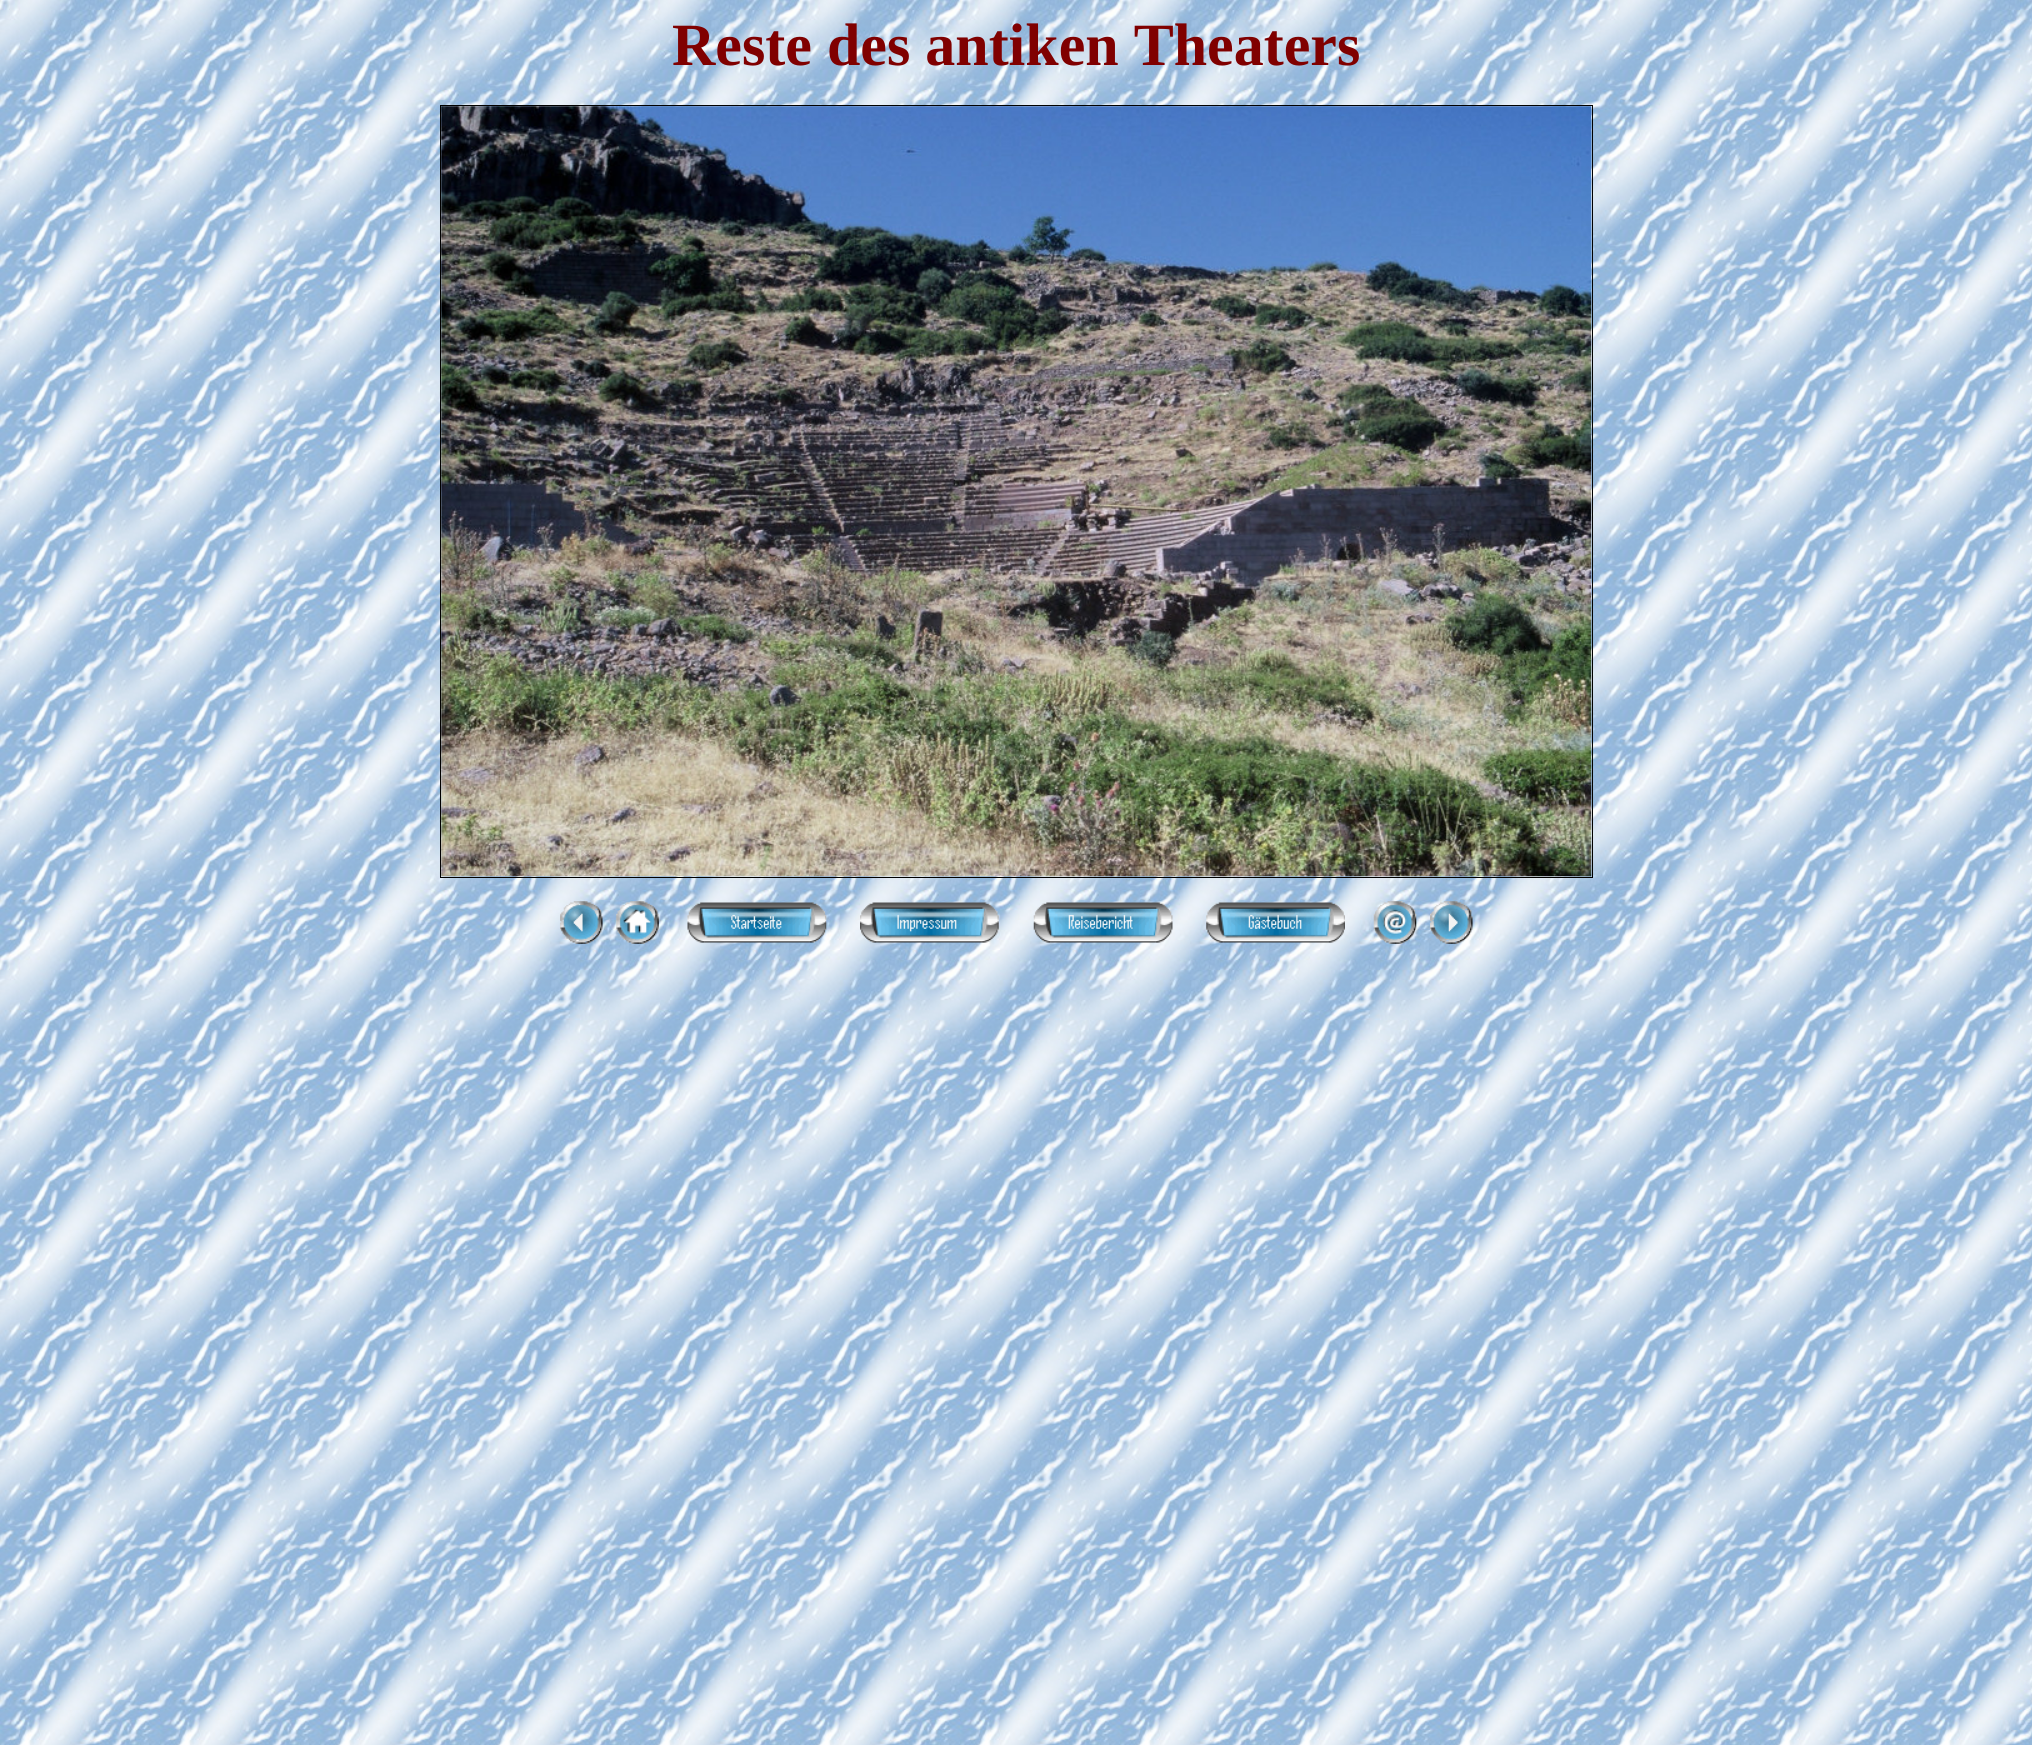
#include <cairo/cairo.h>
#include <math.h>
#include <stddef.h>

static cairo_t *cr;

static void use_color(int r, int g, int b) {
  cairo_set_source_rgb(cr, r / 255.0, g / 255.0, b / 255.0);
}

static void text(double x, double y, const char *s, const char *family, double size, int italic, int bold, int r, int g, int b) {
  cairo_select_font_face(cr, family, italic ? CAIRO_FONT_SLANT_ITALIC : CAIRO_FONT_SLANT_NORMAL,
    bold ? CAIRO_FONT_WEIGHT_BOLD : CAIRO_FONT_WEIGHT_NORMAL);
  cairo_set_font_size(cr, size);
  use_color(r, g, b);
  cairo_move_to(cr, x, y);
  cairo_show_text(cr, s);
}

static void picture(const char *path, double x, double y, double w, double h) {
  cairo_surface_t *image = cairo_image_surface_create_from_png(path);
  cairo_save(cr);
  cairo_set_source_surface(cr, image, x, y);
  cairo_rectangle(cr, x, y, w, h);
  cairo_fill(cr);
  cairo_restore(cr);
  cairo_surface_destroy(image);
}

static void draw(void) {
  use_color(255, 255, 255);
  cairo_paint(cr);
  picture("img_01.png", 0, 0, 2032, 1745);
  cairo_rectangle(cr, 440.5, 105.5, 1152, 772);
  use_color(0, 0, 0);
  cairo_set_line_width(cr, 1);
  cairo_stroke(cr);
  picture("img_02.png", 441, 106, 1151, 771);
  picture("img_03.png", 560, 901, 43, 43);
  picture("img_04.png", 616, 901, 43, 43);
  picture("img_05.png", 687, 902, 140, 41);
  picture("img_06.png", 860, 902, 139, 41);
  picture("img_07.png", 1033, 902, 140, 41);
  picture("img_08.png", 1206, 902, 139, 41);
  picture("img_09.png", 1373, 901, 44, 43);
  picture("img_10.png", 1430, 901, 43, 43);
  text(672, 65, "Reste des antiken Theaters", "Liberation Serif", 60, 0, 1, 128, 0, 0);
}

int main(void) {
  cairo_surface_t *surface = cairo_image_surface_create(CAIRO_FORMAT_RGB24, 2032, 1745);
  cr = cairo_create(surface);
  cairo_font_options_t *options = cairo_font_options_create();
  cairo_font_options_set_hint_metrics(options, CAIRO_HINT_METRICS_OFF);
  cairo_font_options_set_hint_style(options, CAIRO_HINT_STYLE_NONE);
  cairo_set_font_options(cr, options);
  cairo_set_miter_limit(cr, 4);
  draw();
  cairo_surface_write_to_png(surface, "out.png");
  cairo_font_options_destroy(options);
  cairo_destroy(cr);
  cairo_surface_destroy(surface);
  return 0;
}
